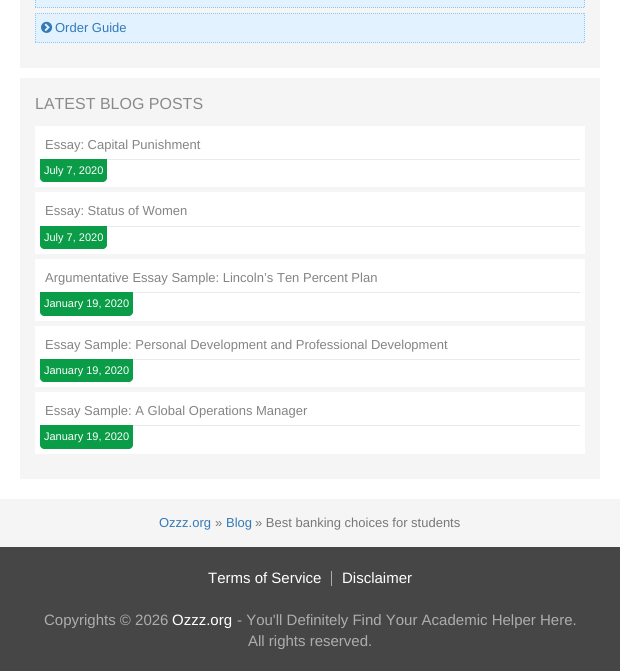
#include <cairo/cairo.h>
#include <math.h>
#include <stddef.h>

static cairo_t *cr;

static void use_color(int r, int g, int b) {
  cairo_set_source_rgb(cr, r / 255.0, g / 255.0, b / 255.0);
}

static void text(double x, double y, const char *s, const char *family, double size, int italic, int bold, int r, int g, int b) {
  cairo_select_font_face(cr, family, italic ? CAIRO_FONT_SLANT_ITALIC : CAIRO_FONT_SLANT_NORMAL,
    bold ? CAIRO_FONT_WEIGHT_BOLD : CAIRO_FONT_WEIGHT_NORMAL);
  cairo_set_font_size(cr, size);
  use_color(r, g, b);
  cairo_move_to(cr, x, y);
  cairo_show_text(cr, s);
}

static void box(double x, double y, double w, double h, int r, int g, int b) {
  use_color(r, g, b);
  cairo_rectangle(cr, x, y, w, h);
  cairo_fill(cr);
}

static void picture(const char *path, double x, double y, double w, double h) {
  cairo_surface_t *image = cairo_image_surface_create_from_png(path);
  cairo_save(cr);
  cairo_set_source_surface(cr, image, x, y);
  cairo_rectangle(cr, x, y, w, h);
  cairo_fill(cr);
  cairo_restore(cr);
  cairo_surface_destroy(image);
}

static void draw(void) {
  use_color(255, 255, 255);
  cairo_paint(cr);
  box(20, 0, 580, 68, 245, 245, 245);
  box(35, 0, 550, 8, 227, 242, 255);
  cairo_new_path(cr);
  cairo_move_to(cr, 584.5, -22);
  cairo_line_to(cr, 584.5, 8);
  use_color(145, 198, 245);
  cairo_set_line_width(cr, 1);
  cairo_set_dash(cr, (double[]){1, 1}, 2, 0);
  cairo_stroke(cr);
  cairo_new_path(cr);
  cairo_move_to(cr, 35, 7.5);
  cairo_line_to(cr, 585, 7.5);
  cairo_stroke(cr);
  cairo_new_path(cr);
  cairo_move_to(cr, 35.5, -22);
  cairo_line_to(cr, 35.5, 8);
  cairo_stroke(cr);
  box(35, 13, 550, 30, 227, 242, 255);
  cairo_new_path(cr);
  cairo_move_to(cr, 35, 13.5);
  cairo_line_to(cr, 585, 13.5);
  use_color(145, 198, 245);
  cairo_stroke(cr);
  cairo_new_path(cr);
  cairo_move_to(cr, 584.5, 13);
  cairo_line_to(cr, 584.5, 43);
  cairo_stroke(cr);
  cairo_new_path(cr);
  cairo_move_to(cr, 35, 42.5);
  cairo_line_to(cr, 585, 42.5);
  cairo_stroke(cr);
  cairo_new_path(cr);
  cairo_move_to(cr, 35.5, 13);
  cairo_line_to(cr, 35.5, 43);
  cairo_stroke(cr);
  picture("img_01.png", 41, 21, 12, 12);
  box(20, 78, 580, 401, 245, 245, 245);
  box(35, 126, 550, 61, 255, 255, 255);
  box(107, 159, 473, 1, 234, 234, 234);
  use_color(10, 156, 70);
  cairo_new_path(cr);
  cairo_move_to(cr, 40, 159);
  cairo_line_to(cr, 107, 159);
  cairo_line_to(cr, 107, 178);
  cairo_curve_to(cr, 107, 180, 105, 182, 103, 182);
  cairo_line_to(cr, 44, 182);
  cairo_curve_to(cr, 42, 182, 40, 180, 40, 178);
  cairo_close_path(cr);
  cairo_fill(cr);
  box(35, 192, 550, 62, 255, 255, 255);
  box(107, 226, 473, 1, 234, 234, 234);
  use_color(10, 156, 70);
  cairo_new_path(cr);
  cairo_move_to(cr, 40, 226);
  cairo_line_to(cr, 107, 226);
  cairo_line_to(cr, 107, 245);
  cairo_curve_to(cr, 107, 247, 105, 249, 103, 249);
  cairo_line_to(cr, 44, 249);
  cairo_curve_to(cr, 42, 249, 40, 247, 40, 245);
  cairo_close_path(cr);
  cairo_fill(cr);
  box(35, 259, 550, 62, 255, 255, 255);
  box(133, 292, 447, 1, 234, 234, 234);
  use_color(10, 156, 70);
  cairo_new_path(cr);
  cairo_move_to(cr, 40, 292);
  cairo_line_to(cr, 133, 292);
  cairo_line_to(cr, 133, 312);
  cairo_curve_to(cr, 133, 314, 131, 316, 129, 316);
  cairo_line_to(cr, 44, 316);
  cairo_curve_to(cr, 42, 316, 40, 314, 40, 312);
  cairo_close_path(cr);
  cairo_fill(cr);
  box(35, 326, 550, 61, 255, 255, 255);
  box(133, 359, 447, 1, 234, 234, 234);
  use_color(10, 156, 70);
  cairo_new_path(cr);
  cairo_move_to(cr, 40, 359);
  cairo_line_to(cr, 133, 359);
  cairo_line_to(cr, 133, 378);
  cairo_curve_to(cr, 133, 380, 131, 382, 129, 382);
  cairo_line_to(cr, 44, 382);
  cairo_curve_to(cr, 42, 382, 40, 380, 40, 378);
  cairo_close_path(cr);
  cairo_fill(cr);
  box(35, 392, 550, 62, 255, 255, 255);
  box(133, 425, 447, 1, 234, 234, 234);
  use_color(10, 156, 70);
  cairo_new_path(cr);
  cairo_move_to(cr, 40, 425);
  cairo_line_to(cr, 133, 425);
  cairo_line_to(cr, 133, 445);
  cairo_curve_to(cr, 133, 447, 131, 449, 129, 449);
  cairo_line_to(cr, 44, 449);
  cairo_curve_to(cr, 42, 449, 40, 447, 40, 445);
  cairo_close_path(cr);
  cairo_fill(cr);
  box(0, 499, 620, 48, 245, 245, 245);
  box(0, 547, 620, 124, 70, 70, 70);
  box(331, 571, 1, 15, 173, 173, 173);
  text(55, 32, "Order Guide", "Liberation Sans", 13, 0, 0, 51, 122, 183);
  text(35, 109, "LATEST BLOG POSTS", "Liberation Sans", 16, 0, 0, 138, 138, 138);
  text(45, 149, "Essay: Capital Punishment", "Liberation Sans", 13, 0, 0, 132, 132, 132);
  text(44, 174, "July 7, 2020", "Liberation Sans", 11, 0, 0, 255, 255, 255);
  text(45, 215, "Essay: Status of Women", "Liberation Sans", 13, 0, 0, 132, 132, 132);
  text(44, 241, "July 7, 2020", "Liberation Sans", 11, 0, 0, 255, 255, 255);
  text(45, 282, "Argumentative Essay Sample: Lincoln’s Ten Percent Plan", "Liberation Sans", 13, 0, 0, 132, 132, 132);
  text(44, 307, "January 19, 2020", "Liberation Sans", 11, 0, 0, 255, 255, 255);
  text(45, 349, "Essay Sample: Personal Development and Professional Development", "Liberation Sans", 13, 0, 0, 132, 132, 132);
  text(44, 374, "January 19, 2020", "Liberation Sans", 11, 0, 0, 255, 255, 255);
  text(45, 415, "Essay Sample: A Global Operations Manager", "Liberation Sans", 13, 0, 0, 132, 132, 132);
  text(44, 440, "January 19, 2020", "Liberation Sans", 11, 0, 0, 255, 255, 255);
  text(159, 527, "Ozzz.org", "Liberation Sans", 13, 0, 0, 51, 122, 183);
  text(215, 527, "»", "Liberation Sans", 13, 0, 0, 119, 119, 119);
  text(226, 527, "Blog", "Liberation Sans", 13, 0, 0, 51, 122, 183);
  text(255, 527, "» Best banking choices for students", "Liberation Sans", 13, 0, 0, 119, 119, 119);
  text(208, 583, "Terms of Service", "Liberation Sans", 15, 0, 0, 255, 255, 255);
  text(342, 583, "Disclaimer", "Liberation Sans", 15, 0, 0, 255, 255, 255);
  text(44, 625, "Copyrights © 2026", "Liberation Sans", 15, 0, 0, 173, 173, 173);
  text(172, 625, "Ozzz.org", "Liberation Sans", 15, 0, 0, 255, 255, 255);
  text(237, 625, "- You'll Definitely Find Your Academic Helper Here.", "Liberation Sans", 15, 0, 0, 173, 173, 173);
  text(248, 646, "All rights reserved.", "Liberation Sans", 15, 0, 0, 173, 173, 173);
}

int main(void) {
  cairo_surface_t *surface = cairo_image_surface_create(CAIRO_FORMAT_RGB24, 620, 671);
  cr = cairo_create(surface);
  cairo_font_options_t *options = cairo_font_options_create();
  cairo_font_options_set_hint_metrics(options, CAIRO_HINT_METRICS_OFF);
  cairo_font_options_set_hint_style(options, CAIRO_HINT_STYLE_NONE);
  cairo_set_font_options(cr, options);
  cairo_set_miter_limit(cr, 4);
  draw();
  cairo_surface_write_to_png(surface, "out.png");
  cairo_font_options_destroy(options);
  cairo_destroy(cr);
  cairo_surface_destroy(surface);
  return 0;
}
